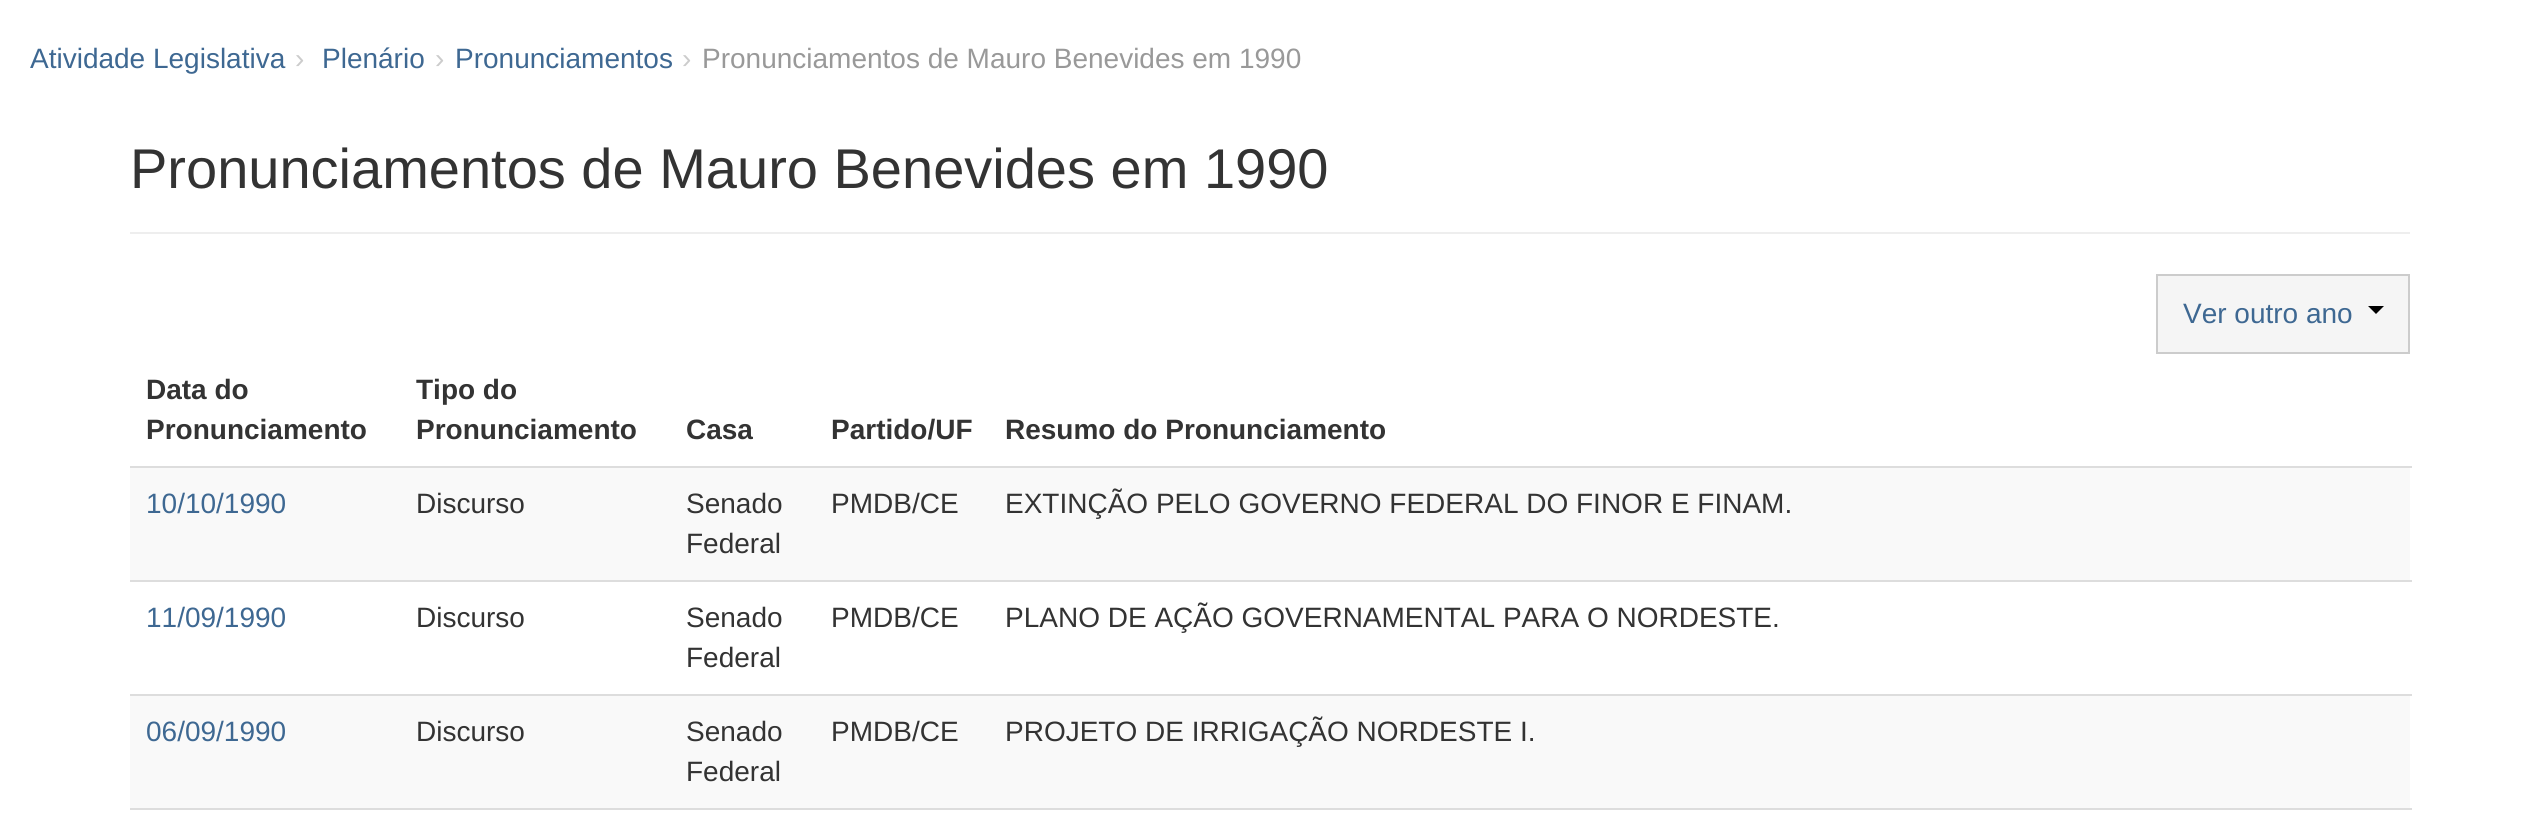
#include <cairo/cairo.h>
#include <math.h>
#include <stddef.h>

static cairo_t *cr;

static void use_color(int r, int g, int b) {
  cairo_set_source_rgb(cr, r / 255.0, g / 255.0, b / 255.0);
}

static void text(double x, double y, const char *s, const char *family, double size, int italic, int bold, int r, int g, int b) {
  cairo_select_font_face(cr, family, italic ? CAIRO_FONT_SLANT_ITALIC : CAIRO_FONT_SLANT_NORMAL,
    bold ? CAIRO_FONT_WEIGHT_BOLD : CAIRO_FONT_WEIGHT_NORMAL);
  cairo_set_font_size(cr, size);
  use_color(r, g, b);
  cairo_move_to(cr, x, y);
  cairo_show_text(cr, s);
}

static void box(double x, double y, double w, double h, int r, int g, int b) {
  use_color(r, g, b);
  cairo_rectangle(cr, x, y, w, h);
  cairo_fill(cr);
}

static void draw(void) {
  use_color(255, 255, 255);
  cairo_paint(cr);
  box(130, 232, 2280, 2, 238, 238, 238);
  use_color(245, 245, 245);
  cairo_rectangle(cr, 2157, 275, 252, 78);
  cairo_fill_preserve(cr);
  use_color(204, 204, 204);
  cairo_stroke(cr);
  use_color(0, 0, 0);
  cairo_new_path(cr);
  cairo_move_to(cr, 2368, 306);
  cairo_line_to(cr, 2384, 306);
  cairo_line_to(cr, 2376, 314);
  cairo_close_path(cr);
  cairo_fill(cr);
  box(130, 468, 2280, 112, 249, 249, 249);
  box(130, 466, 2282, 2, 221, 221, 221);
  box(130, 580, 2282, 2, 221, 221, 221);
  box(130, 696, 2280, 112, 249, 249, 249);
  box(130, 694, 2282, 2, 221, 221, 221);
  box(130, 808, 2282, 2, 221, 221, 221);
  text(30, 68, "Atividade Legislativa", "Liberation Sans", 28, 0, 0, 62, 104, 146);
  text(295, 68, "›", "Liberation Sans", 28, 0, 0, 204, 204, 204);
  text(322, 68, "Plenário", "Liberation Sans", 28, 0, 0, 62, 104, 146);
  text(435, 68, "›", "Liberation Sans", 28, 0, 0, 204, 204, 204);
  text(455, 68, "Pronunciamentos", "Liberation Sans", 28, 0, 0, 62, 104, 146);
  text(682, 68, "›", "Liberation Sans", 28, 0, 0, 204, 204, 204);
  text(702, 68, "Pronunciamentos de Mauro Benevides em 1990", "Liberation Sans", 28, 0, 0, 153, 153, 153);
  text(130, 188, "Pronunciamentos de Mauro Benevides em 1990", "Liberation Sans", 56, 0, 0, 51, 51, 51);
  text(2183, 323, "Ver outro ano", "Liberation Sans", 28, 0, 0, 62, 104, 146);
  text(146, 399, "Data do", "Liberation Sans", 28, 0, 1, 51, 51, 51);
  text(146, 439, "Pronunciamento", "Liberation Sans", 28, 0, 1, 51, 51, 51);
  text(416, 399, "Tipo do", "Liberation Sans", 28, 0, 1, 51, 51, 51);
  text(416, 439, "Pronunciamento", "Liberation Sans", 28, 0, 1, 51, 51, 51);
  text(686, 439, "Casa", "Liberation Sans", 28, 0, 1, 51, 51, 51);
  text(831, 439, "Partido/UF", "Liberation Sans", 28, 0, 1, 51, 51, 51);
  text(1005, 439, "Resumo do Pronunciamento", "Liberation Sans", 28, 0, 1, 51, 51, 51);
  text(146, 513, "10/10/1990", "Liberation Sans", 28, 0, 0, 62, 104, 146);
  text(416, 513, "Discurso", "Liberation Sans", 28, 0, 0, 51, 51, 51);
  text(686, 513, "Senado", "Liberation Sans", 28, 0, 0, 51, 51, 51);
  text(686, 553, "Federal", "Liberation Sans", 28, 0, 0, 51, 51, 51);
  text(831, 513, "PMDB/CE", "Liberation Sans", 28, 0, 0, 51, 51, 51);
  text(1005, 513, "EXTINÇÃO PELO GOVERNO FEDERAL DO FINOR E FINAM.", "Liberation Sans", 28, 0, 0, 51, 51, 51);
  text(146, 627, "11/09/1990", "Liberation Sans", 28, 0, 0, 62, 104, 146);
  text(416, 627, "Discurso", "Liberation Sans", 28, 0, 0, 51, 51, 51);
  text(686, 627, "Senado", "Liberation Sans", 28, 0, 0, 51, 51, 51);
  text(686, 667, "Federal", "Liberation Sans", 28, 0, 0, 51, 51, 51);
  text(831, 627, "PMDB/CE", "Liberation Sans", 28, 0, 0, 51, 51, 51);
  text(1005, 627, "PLANO DE AÇÃO GOVERNAMENTAL PARA O NORDESTE.", "Liberation Sans", 28, 0, 0, 51, 51, 51);
  text(146, 741, "06/09/1990", "Liberation Sans", 28, 0, 0, 62, 104, 146);
  text(416, 741, "Discurso", "Liberation Sans", 28, 0, 0, 51, 51, 51);
  text(686, 741, "Senado", "Liberation Sans", 28, 0, 0, 51, 51, 51);
  text(686, 781, "Federal", "Liberation Sans", 28, 0, 0, 51, 51, 51);
  text(831, 741, "PMDB/CE", "Liberation Sans", 28, 0, 0, 51, 51, 51);
  text(1005, 741, "PROJETO DE IRRIGAÇÃO NORDESTE I.", "Liberation Sans", 28, 0, 0, 51, 51, 51);
}

int main(void) {
  cairo_surface_t *surface = cairo_image_surface_create(CAIRO_FORMAT_RGB24, 2539, 835);
  cr = cairo_create(surface);
  cairo_font_options_t *options = cairo_font_options_create();
  cairo_font_options_set_hint_metrics(options, CAIRO_HINT_METRICS_OFF);
  cairo_font_options_set_hint_style(options, CAIRO_HINT_STYLE_NONE);
  cairo_set_font_options(cr, options);
  cairo_set_miter_limit(cr, 4);
  draw();
  cairo_surface_write_to_png(surface, "out.png");
  cairo_font_options_destroy(options);
  cairo_destroy(cr);
  cairo_surface_destroy(surface);
  return 0;
}
